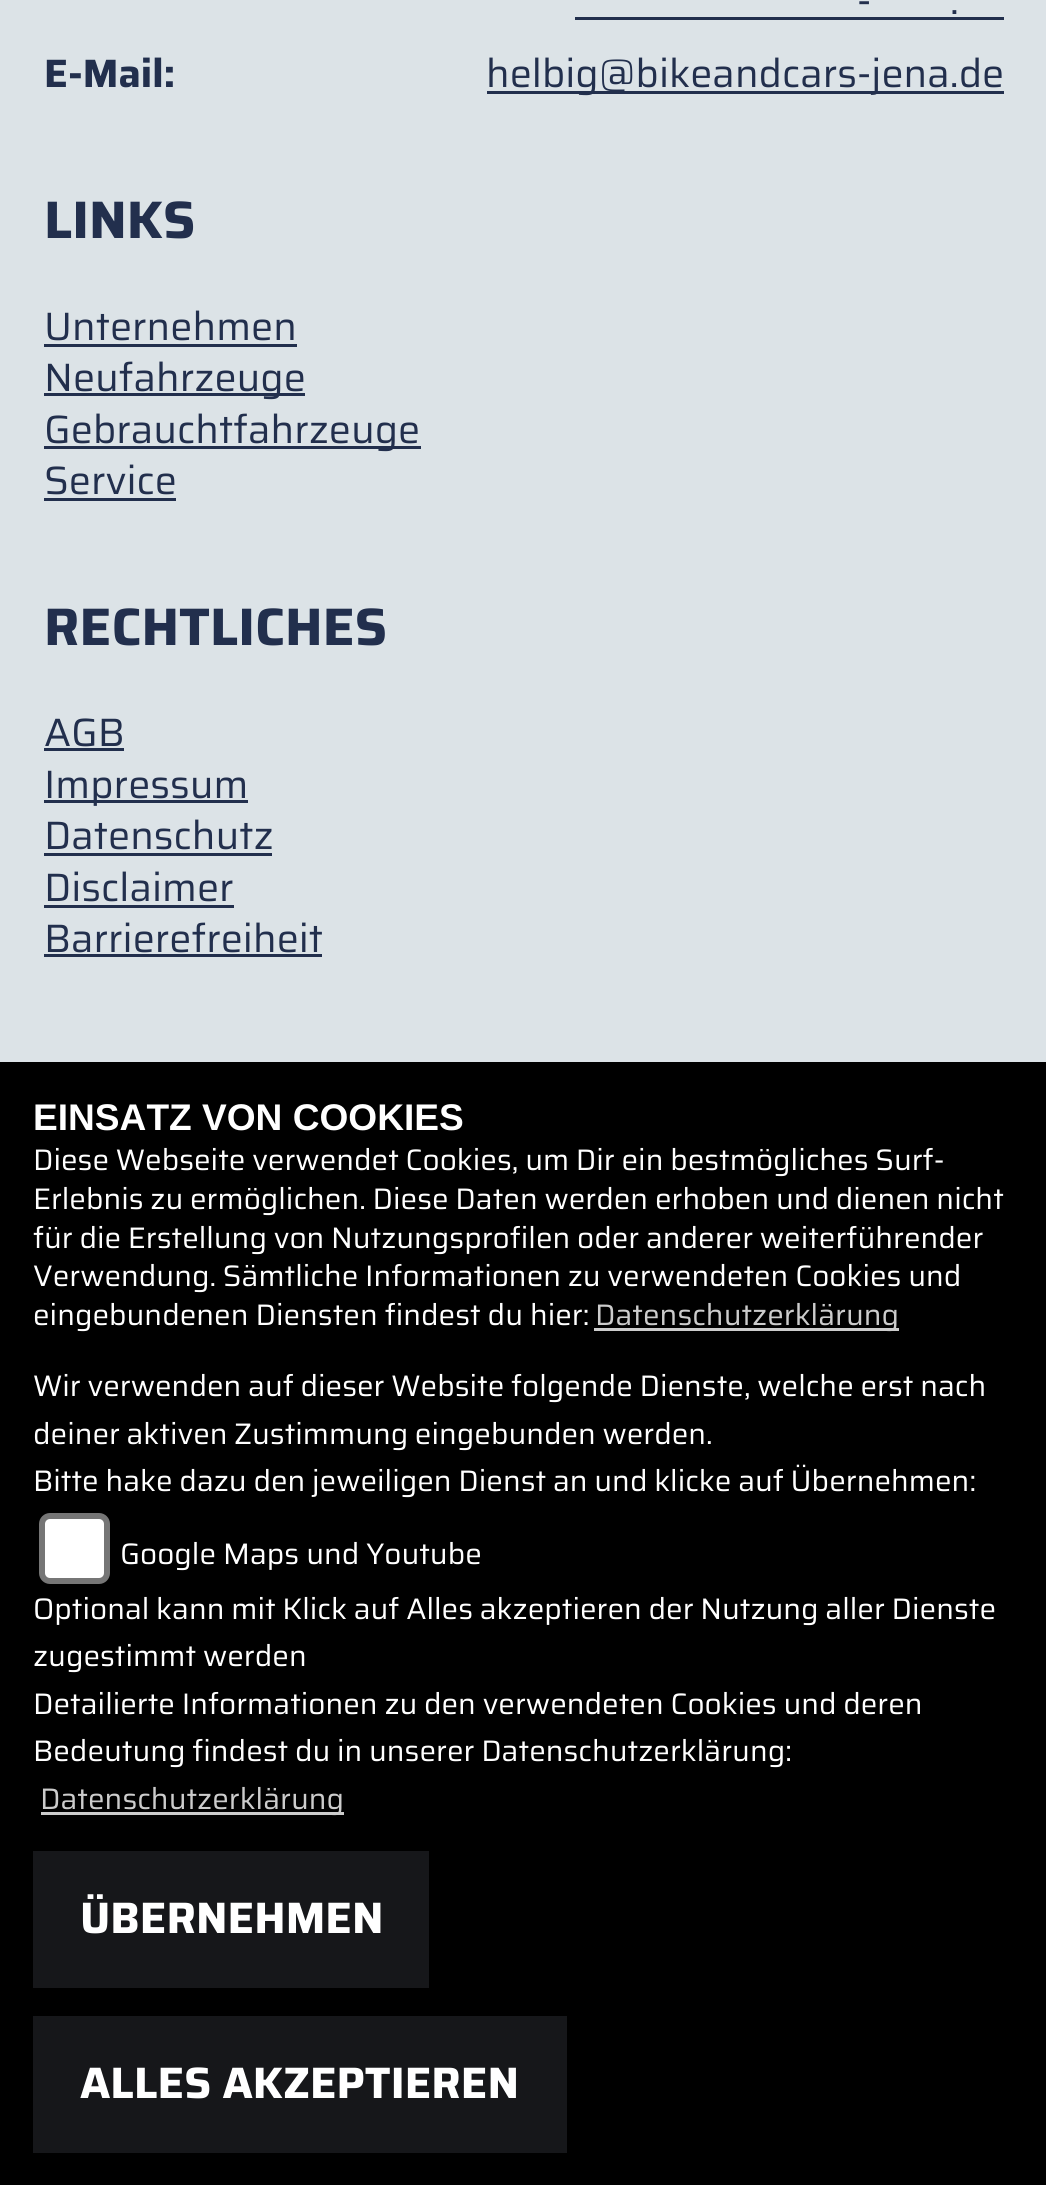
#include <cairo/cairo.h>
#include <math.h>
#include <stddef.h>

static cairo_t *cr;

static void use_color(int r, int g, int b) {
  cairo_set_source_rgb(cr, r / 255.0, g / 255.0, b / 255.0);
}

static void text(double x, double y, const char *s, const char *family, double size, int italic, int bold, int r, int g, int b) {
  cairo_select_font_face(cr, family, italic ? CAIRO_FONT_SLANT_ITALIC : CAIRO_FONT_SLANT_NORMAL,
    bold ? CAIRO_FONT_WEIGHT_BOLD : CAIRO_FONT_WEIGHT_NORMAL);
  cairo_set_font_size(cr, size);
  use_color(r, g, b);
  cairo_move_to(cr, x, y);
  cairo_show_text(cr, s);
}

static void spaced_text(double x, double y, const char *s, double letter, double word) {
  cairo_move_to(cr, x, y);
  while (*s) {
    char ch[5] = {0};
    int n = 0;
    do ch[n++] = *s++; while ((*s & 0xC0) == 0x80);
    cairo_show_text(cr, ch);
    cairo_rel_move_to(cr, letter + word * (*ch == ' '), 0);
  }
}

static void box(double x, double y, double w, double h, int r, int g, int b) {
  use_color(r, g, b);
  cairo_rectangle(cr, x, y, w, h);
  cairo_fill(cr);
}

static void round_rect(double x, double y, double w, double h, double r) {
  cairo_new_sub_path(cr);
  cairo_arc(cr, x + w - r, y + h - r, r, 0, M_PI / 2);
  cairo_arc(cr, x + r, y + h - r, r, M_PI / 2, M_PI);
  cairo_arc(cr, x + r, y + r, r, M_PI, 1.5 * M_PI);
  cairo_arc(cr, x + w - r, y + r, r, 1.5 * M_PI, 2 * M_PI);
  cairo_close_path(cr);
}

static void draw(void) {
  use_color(220, 227, 231);
  cairo_paint(cr);
  box(575, 17, 429, 3, 34, 47, 77);
  box(487, 91, 517, 3, 34, 47, 77);
  box(44, 344, 253, 3, 34, 47, 77);
  box(44, 393, 261, 3, 34, 47, 77);
  box(44, 446, 377, 3, 34, 47, 77);
  box(44, 498, 132, 3, 34, 47, 77);
  box(44, 748, 80, 3, 34, 47, 77);
  box(44, 800, 204, 3, 34, 47, 77);
  box(44, 853, 228, 3, 34, 47, 77);
  box(44, 905, 190, 3, 34, 47, 77);
  box(44, 954, 278, 3, 34, 47, 77);
  box(0, 1062, 1046, 1123, 0, 0, 0);
  box(594, 1328, 305, 3, 204, 204, 204);
  use_color(255, 255, 255);
  round_rect(42, 1516, 65, 65, 8);
  cairo_fill_preserve(cr);
  use_color(118, 118, 118);
  cairo_set_line_width(cr, 6);
  cairo_stroke(cr);
  box(41, 1812, 303, 3, 204, 204, 204);
  box(33, 1851, 396, 137, 22, 23, 26);
  box(33, 2016, 534, 137, 22, 23, 26);
  text(857, 14, "-", "Saira", 39.6, 0, 0, 34, 47, 77);
  text(950, 14, ".", "Saira", 39.6, 0, 0, 34, 47, 77);
  text(44, 87, "E-Mail:", "Saira", 39.6, 0, 1, 34, 47, 77);
  text(486, 87, "helbig@bikeandcars-jena.de", "Saira", 39.6, 0, 0, 34, 47, 77);
  text(44, 238, "LINKS", "Saira", 52.75, 0, 1, 34, 47, 77);
  text(44, 340, "Unternehmen", "Saira", 39.6, 0, 0, 34, 47, 77);
  text(44, 391, "Neufahrzeuge", "Saira", 39.6, 0, 0, 34, 47, 77);
  text(44, 443, "Gebrauchtfahrzeuge", "Saira", 39.6, 0, 0, 34, 47, 77);
  text(44, 494, "Service", "Saira", 39.6, 0, 0, 34, 47, 77);
  text(44, 645, "RECHTLICHES", "Saira", 52.75, 0, 1, 34, 47, 77);
  text(44, 746, "AGB", "Saira", 39.6, 0, 0, 34, 47, 77);
  text(44, 798, "Impressum", "Saira", 39.6, 0, 0, 34, 47, 77);
  text(44, 849, "Datenschutz", "Saira", 39.6, 0, 0, 34, 47, 77);
  text(44, 901, "Disclaimer", "Saira", 39.6, 0, 0, 34, 47, 77);
  text(44, 952, "Barrierefreiheit", "Saira", 39.6, 0, 0, 34, 47, 77);
  text(33, 1130, "EINSATZ VON COOKIES", "Liberation Sans", 37.1, 0, 1, 255, 255, 255);
  cairo_select_font_face(cr, "Saira", CAIRO_FONT_SLANT_NORMAL, CAIRO_FONT_WEIGHT_NORMAL);
  cairo_set_font_size(cr, 29.7);
  spaced_text(33, 1170, "Diese Webseite verwendet Cookies, um Dir ein bestmögliches Surf-", 0, -0.25);
  spaced_text(33, 1209, "Erlebnis zu ermöglichen. Diese Daten werden erhoben und dienen nicht", 0, -0.25);
  spaced_text(33, 1248, "für die Erstellung von Nutzungsprofilen oder anderer weiterführender", 0, -0.25);
  spaced_text(33, 1286, "Verwendung. Sämtliche Informationen zu verwendeten Cookies und", 0, -0.25);
  text(33, 1325, "eingebundenen Diensten findest du hier:", "Saira", 29.7, 0, 0, 255, 255, 255);
  text(595, 1325, "Datenschutzerklärung", "Saira", 29.7, 0, 0, 204, 204, 204);
  use_color(255, 255, 255);
  spaced_text(33, 1396, "Wir verwenden auf dieser Website folgende Dienste, welche erst nach", 0, -0.25);
  spaced_text(33, 1444, "deiner aktiven Zustimmung eingebunden werden.", 0, -0.5);
  spaced_text(33, 1491, "Bitte hake dazu den jeweiligen Dienst an und klicke auf Übernehmen:", 0, -0.25);
  text(120, 1564, "Google Maps und Youtube", "Saira", 29.7, 0, 0, 255, 255, 255);
  spaced_text(33, 1619, "Optional kann mit Klick auf Alles akzeptieren der Nutzung aller Dienste", 0, -0.25);
  text(33, 1666, "zugestimmt werden", "Saira", 29.7, 0, 0, 255, 255, 255);
  spaced_text(33, 1714, "Detailierte Informationen zu den verwendeten Cookies und deren", 0, -0.25);
  spaced_text(33, 1761, "Bedeutung findest du in unserer Datenschutzerklärung:", 0, -0.25);
  text(40, 1809, "Datenschutzerklärung", "Saira", 29.7, 0, 0, 204, 204, 204);
  text(80, 1933, "ÜBERNEHMEN", "Saira", 44, 0, 1, 255, 255, 255);
  text(80, 2098, "ALLES AKZEPTIEREN", "Saira", 44, 0, 1, 255, 255, 255);
}

int main(void) {
  cairo_surface_t *surface = cairo_image_surface_create(CAIRO_FORMAT_RGB24, 1046, 2185);
  cr = cairo_create(surface);
  cairo_font_options_t *options = cairo_font_options_create();
  cairo_font_options_set_hint_metrics(options, CAIRO_HINT_METRICS_OFF);
  cairo_font_options_set_hint_style(options, CAIRO_HINT_STYLE_NONE);
  cairo_set_font_options(cr, options);
  cairo_set_miter_limit(cr, 4);
  draw();
  cairo_surface_write_to_png(surface, "out.png");
  cairo_font_options_destroy(options);
  cairo_destroy(cr);
  cairo_surface_destroy(surface);
  return 0;
}
